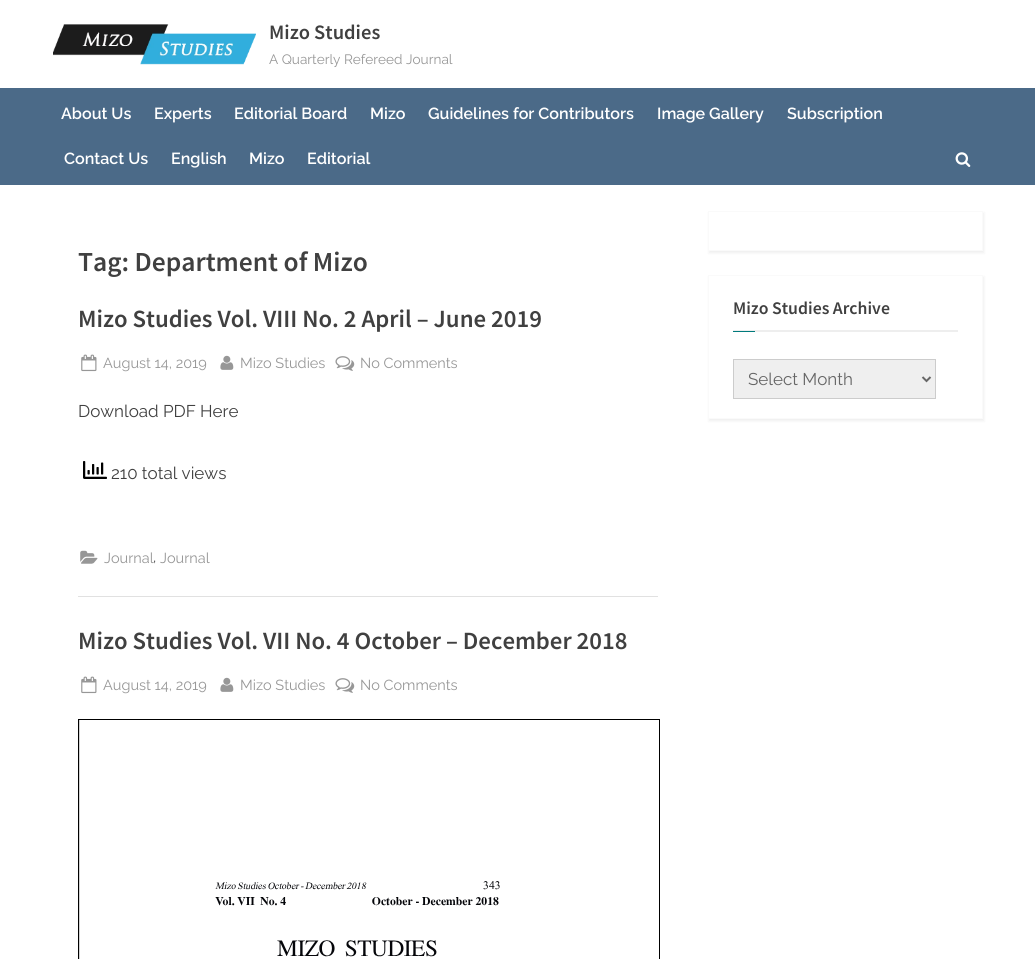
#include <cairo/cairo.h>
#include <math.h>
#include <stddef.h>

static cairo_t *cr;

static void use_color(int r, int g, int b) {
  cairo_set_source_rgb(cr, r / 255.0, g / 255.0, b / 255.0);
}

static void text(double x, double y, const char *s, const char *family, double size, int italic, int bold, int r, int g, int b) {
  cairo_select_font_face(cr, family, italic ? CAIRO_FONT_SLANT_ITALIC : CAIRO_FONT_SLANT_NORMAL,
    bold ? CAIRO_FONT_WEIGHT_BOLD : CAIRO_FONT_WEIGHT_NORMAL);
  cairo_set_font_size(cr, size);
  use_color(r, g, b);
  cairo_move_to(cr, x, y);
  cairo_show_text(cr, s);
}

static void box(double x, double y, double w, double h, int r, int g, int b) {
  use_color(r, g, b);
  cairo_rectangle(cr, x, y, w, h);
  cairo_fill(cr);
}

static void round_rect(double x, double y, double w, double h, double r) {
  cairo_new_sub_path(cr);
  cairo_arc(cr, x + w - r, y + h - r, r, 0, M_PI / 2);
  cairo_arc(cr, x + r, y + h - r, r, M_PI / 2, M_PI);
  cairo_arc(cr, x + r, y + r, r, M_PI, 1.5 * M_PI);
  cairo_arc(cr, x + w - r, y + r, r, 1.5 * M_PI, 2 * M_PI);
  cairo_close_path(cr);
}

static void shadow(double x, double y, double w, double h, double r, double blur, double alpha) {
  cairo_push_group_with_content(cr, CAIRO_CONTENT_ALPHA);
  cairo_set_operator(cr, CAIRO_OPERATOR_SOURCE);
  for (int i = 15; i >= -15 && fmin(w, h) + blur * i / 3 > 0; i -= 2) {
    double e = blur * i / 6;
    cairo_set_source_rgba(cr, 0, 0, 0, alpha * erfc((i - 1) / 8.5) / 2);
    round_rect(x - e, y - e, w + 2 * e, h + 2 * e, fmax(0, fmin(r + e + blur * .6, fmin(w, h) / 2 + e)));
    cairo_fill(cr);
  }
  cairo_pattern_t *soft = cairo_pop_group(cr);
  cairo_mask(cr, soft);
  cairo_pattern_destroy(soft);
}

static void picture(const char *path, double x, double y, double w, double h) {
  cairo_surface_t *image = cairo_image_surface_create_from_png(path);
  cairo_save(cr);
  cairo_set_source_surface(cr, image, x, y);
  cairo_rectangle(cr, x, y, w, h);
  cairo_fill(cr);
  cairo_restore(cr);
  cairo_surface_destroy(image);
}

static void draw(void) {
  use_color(255, 255, 255);
  cairo_paint(cr);
  picture("img_01.png", 53, 24, 203, 41);
  box(0, 88, 1035, 97, 75, 106, 136);
  picture("img_02.png", 955, 152, 16, 15);
  box(78, 596, 580, 1, 225, 225, 225);
  picture("img_03.png", 81, 354, 16, 18);
  picture("img_04.png", 220, 355, 14, 15);
  picture("img_05.png", 335, 356, 20, 15);
  picture("img_06.png", 83, 461, 24, 18);
  picture("img_07.png", 80, 550, 18, 14);
  picture("img_03.png", 81, 676, 16, 18);
  picture("img_04.png", 220, 677, 14, 15);
  picture("img_05.png", 335, 678, 20, 15);
  box(79, 720, 1, 239, 211, 211, 211);
  cairo_rectangle(cr, 78.5, 719.5, 581, 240);
  use_color(0, 0, 0);
  cairo_set_line_width(cr, 1);
  cairo_stroke(cr);
  picture("img_08.png", 215, 881, 285, 76);
  cairo_save(cr);
  cairo_set_fill_rule(cr, CAIRO_FILL_RULE_EVEN_ODD);
  cairo_new_path(cr);
  cairo_move_to(cr, 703, 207);
  cairo_line_to(cr, 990, 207);
  cairo_line_to(cr, 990, 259);
  cairo_line_to(cr, 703, 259);
  cairo_close_path(cr);
  cairo_move_to(cr, 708, 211);
  cairo_line_to(cr, 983, 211);
  cairo_line_to(cr, 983, 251);
  cairo_line_to(cr, 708, 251);
  cairo_close_path(cr);
  cairo_clip(cr);
  use_color(0, 0, 0);
  shadow(709, 213, 275, 40, 0, 1.5, 0.07);
  cairo_restore(cr);
  cairo_rectangle(cr, 708.5, 211.5, 274, 39);
  use_color(250, 250, 250);
  cairo_stroke(cr);
  cairo_save(cr);
  cairo_set_fill_rule(cr, CAIRO_FILL_RULE_EVEN_ODD);
  cairo_new_path(cr);
  cairo_move_to(cr, 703, 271);
  cairo_line_to(cr, 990, 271);
  cairo_line_to(cr, 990, 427);
  cairo_line_to(cr, 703, 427);
  cairo_close_path(cr);
  cairo_move_to(cr, 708, 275);
  cairo_line_to(cr, 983, 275);
  cairo_line_to(cr, 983, 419);
  cairo_line_to(cr, 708, 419);
  cairo_close_path(cr);
  cairo_clip(cr);
  use_color(0, 0, 0);
  shadow(709, 277, 275, 144, 0, 1.5, 0.07);
  cairo_restore(cr);
  cairo_rectangle(cr, 708.5, 275.5, 274, 143);
  cairo_stroke(cr);
  box(733, 330, 225, 2, 238, 238, 238);
  box(733, 331, 22, 1, 0, 122, 124);
  use_color(239, 239, 239);
  cairo_rectangle(cr, 733.5, 359.5, 202, 39);
  cairo_fill_preserve(cr);
  use_color(204, 204, 204);
  cairo_stroke(cr);
  cairo_new_path(cr);
  cairo_move_to(cr, 922.5, 377);
  cairo_line_to(cr, 926.5, 381);
  cairo_line_to(cr, 930.5, 377);
  use_color(102, 102, 102);
  cairo_set_line_width(cr, 2);
  cairo_stroke(cr);
  text(269, 39, "Mizo Studies", "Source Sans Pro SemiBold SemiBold", 20.5, 0, 0, 64, 64, 64);
  text(269, 64, "A Quarterly Refereed Journal", "Raleway", 13.6, 0, 0, 151, 151, 151);
  text(61, 119, "About Us", "Raleway SemiBold", 16.1, 0, 0, 255, 255, 255);
  text(154, 119, "Experts", "Raleway SemiBold", 16.1, 0, 0, 255, 255, 255);
  text(234, 119, "Editorial Board", "Raleway SemiBold", 16.1, 0, 0, 255, 255, 255);
  text(370, 119, "Mizo", "Raleway SemiBold", 16.1, 0, 0, 255, 255, 255);
  text(428, 119, "Guidelines for Contributors", "Raleway SemiBold", 16.1, 0, 0, 255, 255, 255);
  text(657, 119, "Image Gallery", "Raleway SemiBold", 16.1, 0, 0, 255, 255, 255);
  text(787, 119, "Subscription", "Raleway SemiBold", 16.1, 0, 0, 255, 255, 255);
  text(64, 164, "Contact Us", "Raleway SemiBold", 16.1, 0, 0, 255, 255, 255);
  text(171, 164, "English", "Raleway SemiBold", 16.1, 0, 0, 255, 255, 255);
  text(249, 164, "Mizo", "Raleway SemiBold", 16.1, 0, 0, 255, 255, 255);
  text(307, 164, "Editorial", "Raleway SemiBold", 16.1, 0, 0, 255, 255, 255);
  text(78, 271, "Tag: Department of Mizo", "Source Sans Pro SemiBold SemiBold", 27.5, 0, 0, 64, 64, 64);
  text(78, 327, "Mizo Studies Vol. VIII No. 2 April – June 2019", "Source Sans Pro SemiBold SemiBold", 24.8, 0, 0, 64, 64, 64);
  text(103, 368, "August 14, 2019", "Raleway", 14.5, 0, 0, 151, 151, 151);
  text(240, 368, "Mizo Studies", "Raleway", 14.5, 0, 0, 151, 151, 151);
  text(360, 368, "No Comments", "Raleway", 14.5, 0, 0, 151, 151, 151);
  text(78, 417, "Download PDF Here", "Raleway", 17, 0, 0, 64, 64, 64);
  text(111, 479, "210 total views", "Raleway", 17, 0, 0, 64, 64, 64);
  text(104, 563, "Journal", "Raleway", 14.5, 0, 0, 151, 151, 151);
  text(153, 562, ",", "Raleway", 14.5, 0, 0, 64, 64, 64);
  text(160, 563, "Journal", "Raleway", 14.5, 0, 0, 151, 151, 151);
  text(78, 649, "Mizo Studies Vol. VII No. 4 October – December 2018", "Source Sans Pro SemiBold SemiBold", 24.8, 0, 0, 64, 64, 64);
  text(103, 690, "August 14, 2019", "Raleway", 14.5, 0, 0, 151, 151, 151);
  text(240, 690, "Mizo Studies", "Raleway", 14.5, 0, 0, 151, 151, 151);
  text(360, 690, "No Comments", "Raleway", 14.5, 0, 0, 151, 151, 151);
  text(733, 314, "Mizo Studies Archive", "Source Sans Pro SemiBold SemiBold", 17.75, 0, 0, 64, 64, 64);
  text(748, 385, "Select Month", "Raleway", 17, 0, 0, 102, 102, 102);
}

int main(void) {
  cairo_surface_t *surface = cairo_image_surface_create(CAIRO_FORMAT_RGB24, 1035, 959);
  cr = cairo_create(surface);
  cairo_font_options_t *options = cairo_font_options_create();
  cairo_font_options_set_hint_metrics(options, CAIRO_HINT_METRICS_OFF);
  cairo_font_options_set_hint_style(options, CAIRO_HINT_STYLE_NONE);
  cairo_set_font_options(cr, options);
  cairo_set_miter_limit(cr, 4);
  draw();
  cairo_surface_write_to_png(surface, "out.png");
  cairo_font_options_destroy(options);
  cairo_destroy(cr);
  cairo_surface_destroy(surface);
  return 0;
}
